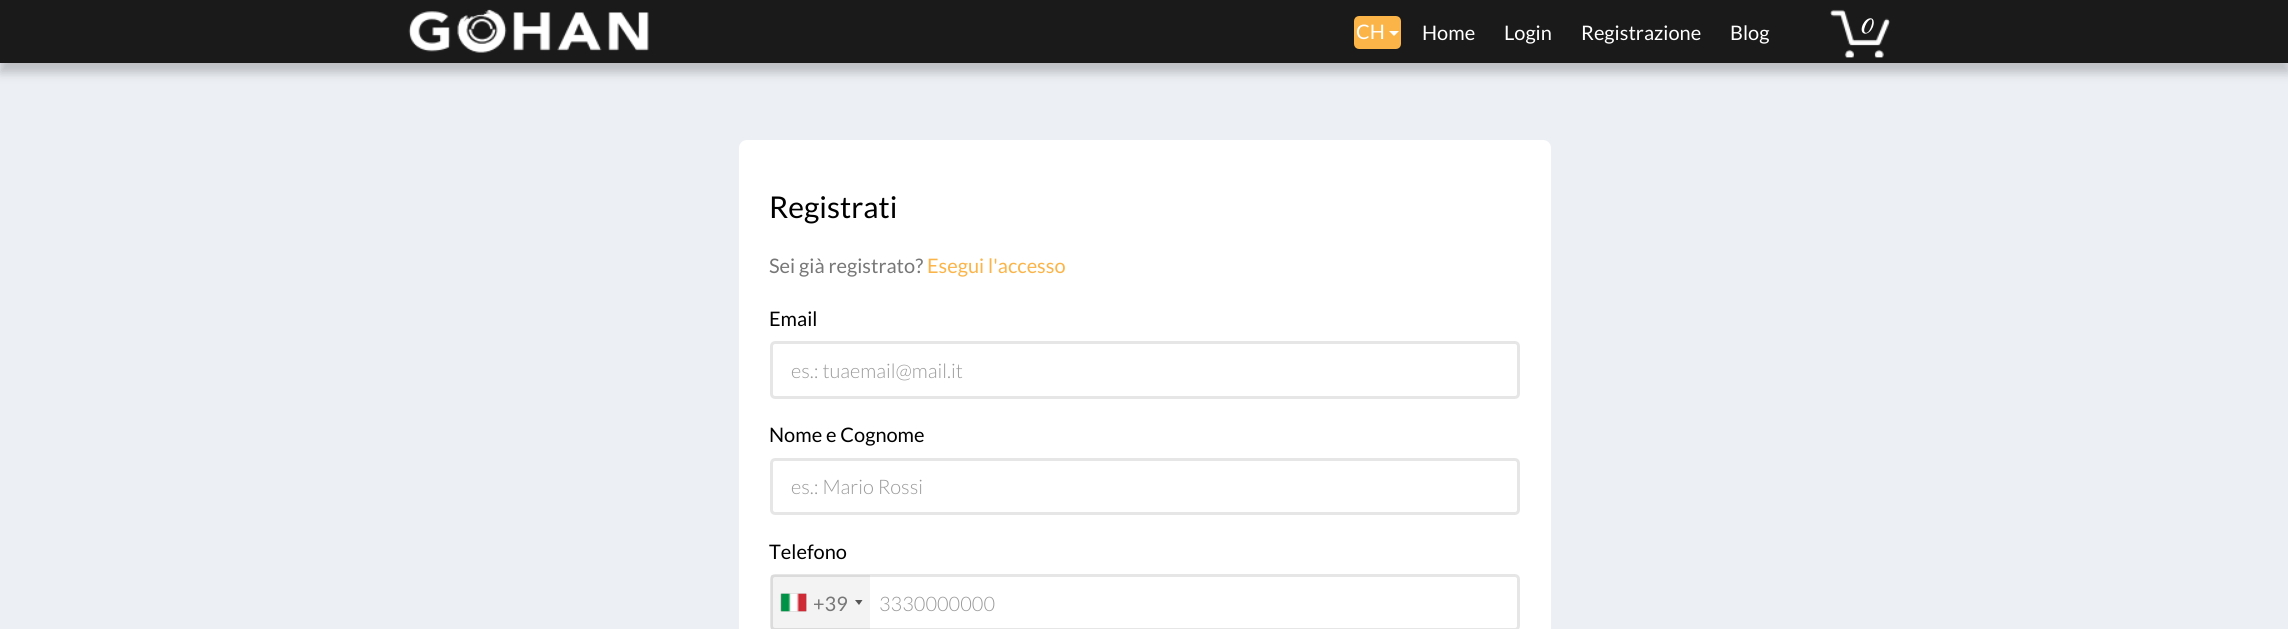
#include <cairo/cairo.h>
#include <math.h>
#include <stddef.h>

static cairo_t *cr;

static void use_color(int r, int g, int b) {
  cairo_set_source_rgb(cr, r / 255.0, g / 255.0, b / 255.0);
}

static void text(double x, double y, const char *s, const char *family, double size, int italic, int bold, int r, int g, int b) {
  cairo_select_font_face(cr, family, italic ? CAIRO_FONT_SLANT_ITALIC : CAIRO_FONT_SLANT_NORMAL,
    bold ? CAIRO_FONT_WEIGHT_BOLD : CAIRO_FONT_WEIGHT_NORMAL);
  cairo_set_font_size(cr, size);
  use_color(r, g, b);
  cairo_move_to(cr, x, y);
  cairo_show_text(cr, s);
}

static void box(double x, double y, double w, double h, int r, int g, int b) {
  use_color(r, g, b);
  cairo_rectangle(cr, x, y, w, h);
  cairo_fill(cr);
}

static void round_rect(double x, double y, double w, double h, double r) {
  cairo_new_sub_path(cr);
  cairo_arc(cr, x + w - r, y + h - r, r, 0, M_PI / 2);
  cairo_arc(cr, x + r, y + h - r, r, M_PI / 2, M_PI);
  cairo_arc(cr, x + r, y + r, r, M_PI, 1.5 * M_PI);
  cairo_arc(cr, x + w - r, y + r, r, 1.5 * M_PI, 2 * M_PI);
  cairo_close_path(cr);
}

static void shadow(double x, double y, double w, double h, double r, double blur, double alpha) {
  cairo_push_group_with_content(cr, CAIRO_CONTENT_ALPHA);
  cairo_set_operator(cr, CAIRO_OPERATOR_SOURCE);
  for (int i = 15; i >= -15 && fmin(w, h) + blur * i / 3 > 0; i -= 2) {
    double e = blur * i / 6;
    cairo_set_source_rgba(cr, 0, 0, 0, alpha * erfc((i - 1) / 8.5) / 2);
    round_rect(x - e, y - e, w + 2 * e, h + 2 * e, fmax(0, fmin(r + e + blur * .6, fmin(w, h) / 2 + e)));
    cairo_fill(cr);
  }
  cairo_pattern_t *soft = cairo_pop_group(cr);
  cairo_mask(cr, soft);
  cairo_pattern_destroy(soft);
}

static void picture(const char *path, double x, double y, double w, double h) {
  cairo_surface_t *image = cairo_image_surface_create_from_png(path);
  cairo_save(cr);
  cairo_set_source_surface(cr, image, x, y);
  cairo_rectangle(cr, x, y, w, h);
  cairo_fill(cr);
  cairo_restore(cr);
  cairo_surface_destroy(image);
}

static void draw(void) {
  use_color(236, 239, 244);
  cairo_paint(cr);
  use_color(0, 0, 0);
  shadow(0, 10, 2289, 63, 0, 5, 0.2);
  box(0, 0, 2288, 63, 26, 26, 26);
  picture("img_01.png", 408, 9, 241, 44);
  use_color(251, 180, 72);
  round_rect(1355.5, 17.5, 44, 30, 3.5);
  cairo_fill_preserve(cr);
  cairo_set_line_width(cr, 3);
  cairo_stroke(cr);
  use_color(255, 255, 255);
  cairo_new_path(cr);
  cairo_move_to(cr, 1389, 31);
  cairo_line_to(cr, 1399, 31);
  cairo_line_to(cr, 1394, 36);
  cairo_close_path(cr);
  cairo_fill(cr);
  picture("img_02.png", 1830, 9, 60, 49);
  round_rect(739, 140, 812, 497, 8);
  cairo_fill(cr);
  round_rect(771.5, 342.5, 747, 55, 3.5);
  use_color(230, 230, 230);
  cairo_stroke(cr);
  round_rect(771.5, 459.5, 747, 54, 3.5);
  cairo_stroke(cr);
  round_rect(771.5, 575.5, 747, 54, 3.5);
  cairo_stroke(cr);
  cairo_set_source_rgba(cr, 0, 0, 0, 0.05);
  cairo_rectangle(cr, 771, 575, 99, 54);
  cairo_fill(cr);
  use_color(136, 136, 136);
  shadow(781, 594, 25, 17, 0, 0.5, 1);
  picture("img_03.png", 781, 593, 26, 19);
  use_color(85, 85, 85);
  cairo_new_path(cr);
  cairo_move_to(cr, 855, 600);
  cairo_line_to(cr, 862.5, 600);
  cairo_line_to(cr, 859, 605);
  cairo_close_path(cr);
  cairo_fill(cr);
  text(1356, 39, "CH", "Lato", 20, 0, 0, 255, 255, 255);
  text(1422, 40, "Home", "Lato", 20, 0, 0, 255, 255, 255);
  text(1504, 40, "Login", "Lato", 20, 0, 0, 255, 255, 255);
  text(1581, 40, "Registrazione", "Lato", 20, 0, 0, 255, 255, 255);
  text(1730, 40, "Blog", "Lato", 20, 0, 0, 255, 255, 255);
  text(1859, 33, "0", "Kaushan Script", 20, 0, 0, 255, 255, 255);
  text(769, 218, "Registrati", "Lato", 30, 0, 0, 0, 0, 0);
  text(769, 273, "Sei già registrato?", "Lato", 20, 0, 0, 119, 119, 119);
  text(927, 273, "Esegui l'accesso", "Lato", 20, 0, 0, 251, 180, 72);
  text(769, 326, "Email", "Lato", 20, 0, 0, 0, 0, 0);
  text(791, 378, "es.: tuaemail@mail.it", "Lato Light", 20, 0, 0, 153, 153, 153);
  text(769, 442, "Nome e Cognome", "Lato", 20, 0, 0, 0, 0, 0);
  text(791, 494, "es.: Mario Rossi", "Lato Light", 20, 0, 0, 153, 153, 153);
  text(769, 559, "Telefono", "Lato", 20, 0, 0, 0, 0, 0);
  text(813, 611, "+39", "Lato", 20, 0, 0, 119, 119, 119);
  text(879, 611, "3330000000", "Lato Light", 20, 0, 0, 153, 153, 153);
}

int main(void) {
  cairo_surface_t *surface = cairo_image_surface_create(CAIRO_FORMAT_RGB24, 2288, 629);
  cr = cairo_create(surface);
  cairo_font_options_t *options = cairo_font_options_create();
  cairo_font_options_set_hint_metrics(options, CAIRO_HINT_METRICS_OFF);
  cairo_font_options_set_hint_style(options, CAIRO_HINT_STYLE_NONE);
  cairo_set_font_options(cr, options);
  cairo_set_miter_limit(cr, 4);
  draw();
  cairo_surface_write_to_png(surface, "out.png");
  cairo_font_options_destroy(options);
  cairo_destroy(cr);
  cairo_surface_destroy(surface);
  return 0;
}
